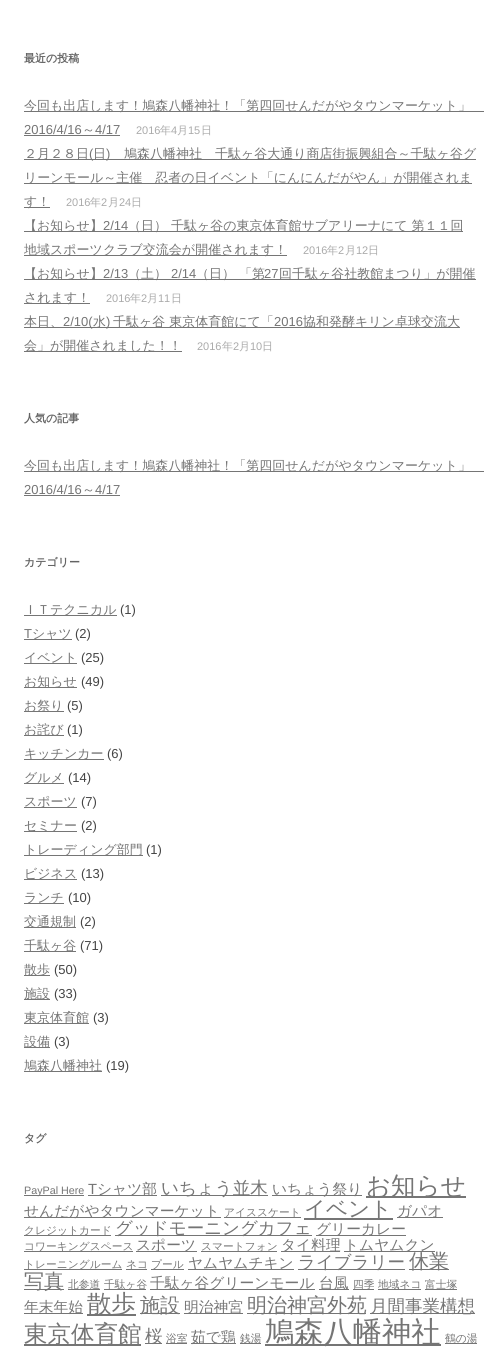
#include <cairo/cairo.h>
#include <math.h>
#include <stddef.h>

static cairo_t *cr;

static void use_color(int r, int g, int b) {
  cairo_set_source_rgb(cr, r / 255.0, g / 255.0, b / 255.0);
}

static void text(double x, double y, const char *s, const char *family, double size, int italic, int bold, int r, int g, int b) {
  cairo_select_font_face(cr, family, italic ? CAIRO_FONT_SLANT_ITALIC : CAIRO_FONT_SLANT_NORMAL,
    bold ? CAIRO_FONT_WEIGHT_BOLD : CAIRO_FONT_WEIGHT_NORMAL);
  cairo_set_font_size(cr, size);
  use_color(r, g, b);
  cairo_move_to(cr, x, y);
  cairo_show_text(cr, s);
}

static void box(double x, double y, double w, double h, int r, int g, int b) {
  use_color(r, g, b);
  cairo_rectangle(cr, x, y, w, h);
  cairo_fill(cr);
}

static void draw(void) {
  use_color(255, 255, 255);
  cairo_paint(cr);
  box(24, 111, 460, 1, 117, 117, 117);
  box(24, 135, 96, 1, 117, 117, 117);
  box(24, 159, 452, 1, 117, 117, 117);
  box(24, 183, 448, 1, 117, 117, 117);
  box(24, 207, 26, 1, 117, 117, 117);
  box(24, 231, 439, 1, 117, 117, 117);
  box(24, 255, 263, 1, 117, 117, 117);
  box(24, 279, 452, 1, 117, 117, 117);
  box(24, 303, 66, 1, 117, 117, 117);
  box(24, 327, 436, 1, 117, 117, 117);
  box(24, 351, 158, 1, 117, 117, 117);
  box(24, 471, 460, 1, 117, 117, 117);
  box(24, 495, 96, 1, 117, 117, 117);
  box(24, 615, 93, 1, 117, 117, 117);
  box(24, 639, 48, 1, 117, 117, 117);
  box(24, 663, 53, 1, 117, 117, 117);
  box(24, 687, 53, 1, 117, 117, 117);
  box(24, 711, 40, 1, 117, 117, 117);
  box(24, 735, 40, 1, 117, 117, 117);
  box(24, 759, 80, 1, 117, 117, 117);
  box(24, 783, 40, 1, 117, 117, 117);
  box(24, 807, 53, 1, 117, 117, 117);
  box(24, 831, 53, 1, 117, 117, 117);
  box(24, 855, 119, 1, 117, 117, 117);
  box(24, 879, 53, 1, 117, 117, 117);
  box(24, 903, 40, 1, 117, 117, 117);
  box(24, 927, 52, 1, 117, 117, 117);
  box(24, 951, 52, 1, 117, 117, 117);
  box(24, 975, 26, 1, 117, 117, 117);
  box(24, 999, 26, 1, 117, 117, 117);
  box(24, 1023, 65, 1, 117, 117, 117);
  box(24, 1047, 26, 1, 117, 117, 117);
  box(24, 1071, 78, 1, 117, 117, 117);
  box(24, 1195, 60, 1, 117, 117, 117);
  box(88, 1195, 69, 1, 117, 117, 117);
  box(161, 1195, 107, 1, 117, 117, 117);
  box(272, 1195, 90, 1, 117, 117, 117);
  box(366, 1196, 100, 2, 117, 117, 117);
  box(24, 1217, 197, 1, 117, 117, 117);
  box(224, 1217, 77, 1, 117, 117, 117);
  box(304, 1218, 89, 2, 117, 117, 117);
  box(397, 1217, 46, 1, 117, 117, 117);
  box(24, 1235, 87, 1, 117, 117, 117);
  box(115, 1235, 197, 1, 117, 117, 117);
  box(316, 1235, 90, 1, 117, 117, 117);
  box(24, 1251, 109, 1, 117, 117, 117);
  box(136, 1251, 61, 1, 117, 117, 117);
  box(201, 1251, 76, 1, 117, 117, 117);
  box(281, 1251, 59, 1, 117, 117, 117);
  box(344, 1251, 91, 1, 117, 117, 117);
  box(24, 1269, 98, 1, 117, 117, 117);
  box(126, 1269, 21, 1, 117, 117, 117);
  box(151, 1269, 33, 1, 117, 117, 117);
  box(188, 1269, 106, 1, 117, 117, 117);
  box(298, 1269, 107, 1, 117, 117, 117);
  box(409, 1269, 40, 1, 117, 117, 117);
  box(24, 1289, 40, 1, 117, 117, 117);
  box(68, 1289, 32, 1, 117, 117, 117);
  box(104, 1289, 42, 1, 117, 117, 117);
  box(150, 1289, 165, 1, 117, 117, 117);
  box(319, 1289, 30, 1, 117, 117, 117);
  box(353, 1289, 21, 1, 117, 117, 117);
  box(378, 1289, 43, 1, 117, 117, 117);
  box(425, 1289, 32, 1, 117, 117, 117);
  box(24, 1313, 59, 1, 117, 117, 117);
  box(87, 1314, 49, 2, 117, 117, 117);
  box(140, 1313, 40, 1, 117, 117, 117);
  box(184, 1313, 59, 1, 117, 117, 117);
  box(247, 1313, 119, 1, 117, 117, 117);
  box(370, 1313, 105, 1, 117, 117, 117);
  box(24, 1344, 117, 2, 117, 117, 117);
  box(145, 1343, 17, 1, 117, 117, 117);
  box(166, 1343, 21, 1, 117, 117, 117);
  box(191, 1343, 45, 1, 117, 117, 117);
  box(240, 1343, 21, 1, 117, 117, 117);
  box(265, 1344, 176, 2, 117, 117, 117);
  box(445, 1343, 32, 1, 117, 117, 117);
  text(24, 62, "最近の投稿", "WenQuanYi Zen Hei", 11, 0, 1, 99, 99, 99);
  text(24, 110, "今回も出店します！鳩森八幡神社！「第四回せんだがやタウンマーケット」", "WenQuanYi Zen Hei Medium", 13, 0, 0, 117, 117, 117);
  text(24, 134, "2016/4/16", "Liberation Sans", 13, 0, 0, 117, 117, 117);
  text(82, 134, "～", "WenQuanYi Zen Hei Medium", 13, 0, 0, 117, 117, 117);
  text(95, 134, "4/17", "Liberation Sans", 13, 0, 0, 117, 117, 117);
  text(136, 134, "2016", "Liberation Sans", 11, 0, 0, 170, 170, 170);
  text(160, 134, "年", "WenQuanYi Zen Hei Medium", 11, 0, 0, 170, 170, 170);
  text(171, 134, "4", "Liberation Sans", 11, 0, 0, 170, 170, 170);
  text(177, 134, "月", "WenQuanYi Zen Hei Medium", 11, 0, 0, 170, 170, 170);
  text(188, 134, "15", "Liberation Sans", 11, 0, 0, 170, 170, 170);
  text(201, 134, "日", "WenQuanYi Zen Hei Medium", 11, 0, 0, 170, 170, 170);
  text(24, 158, "２月２８日", "WenQuanYi Zen Hei Medium", 13, 0, 0, 117, 117, 117);
  text(89, 158, "(", "Liberation Sans", 13, 0, 0, 117, 117, 117);
  text(93, 158, "日", "WenQuanYi Zen Hei Medium", 13, 0, 0, 117, 117, 117);
  text(106, 158, ")", "Liberation Sans", 13, 0, 0, 117, 117, 117);
  text(124, 158, "鳩森八幡神社　千駄ヶ谷大通り商店街振興組合～千駄ヶ谷グ", "WenQuanYi Zen Hei Medium", 13, 0, 0, 117, 117, 117);
  text(24, 182, "リーンモール～主催　忍者の日イベント「にんにんだがやん」が開催されま", "WenQuanYi Zen Hei Medium", 13, 0, 0, 117, 117, 117);
  text(24, 206, "す！", "WenQuanYi Zen Hei Medium", 13, 0, 0, 117, 117, 117);
  text(66, 206, "2016", "Liberation Sans", 11, 0, 0, 170, 170, 170);
  text(90, 206, "年", "WenQuanYi Zen Hei Medium", 11, 0, 0, 170, 170, 170);
  text(101, 206, "2", "Liberation Sans", 11, 0, 0, 170, 170, 170);
  text(108, 206, "月", "WenQuanYi Zen Hei Medium", 11, 0, 0, 170, 170, 170);
  text(119, 206, "24", "Liberation Sans", 11, 0, 0, 170, 170, 170);
  text(131, 206, "日", "WenQuanYi Zen Hei Medium", 11, 0, 0, 170, 170, 170);
  text(24, 230, "【お知らせ】", "WenQuanYi Zen Hei Medium", 13, 0, 0, 117, 117, 117);
  text(103, 230, "2/14", "Liberation Sans", 13, 0, 0, 117, 117, 117);
  text(128, 230, "（日） 千駄ヶ谷の東京体育館サブアリーナにて 第１１回", "WenQuanYi Zen Hei Medium", 13, 0, 0, 117, 117, 117);
  text(24, 254, "地域スポーツクラブ交流会が開催されます！", "WenQuanYi Zen Hei Medium", 13, 0, 0, 117, 117, 117);
  text(303, 254, "2016", "Liberation Sans", 11, 0, 0, 170, 170, 170);
  text(327, 254, "年", "WenQuanYi Zen Hei Medium", 11, 0, 0, 170, 170, 170);
  text(338, 254, "2", "Liberation Sans", 11, 0, 0, 170, 170, 170);
  text(345, 254, "月", "WenQuanYi Zen Hei Medium", 11, 0, 0, 170, 170, 170);
  text(356, 254, "12", "Liberation Sans", 11, 0, 0, 170, 170, 170);
  text(368, 254, "日", "WenQuanYi Zen Hei Medium", 11, 0, 0, 170, 170, 170);
  text(24, 278, "【お知らせ】", "WenQuanYi Zen Hei Medium", 13, 0, 0, 117, 117, 117);
  text(103, 278, "2/13", "Liberation Sans", 13, 0, 0, 117, 117, 117);
  text(128, 278, "（土）", "WenQuanYi Zen Hei Medium", 13, 0, 0, 117, 117, 117);
  text(171, 278, "2/14", "Liberation Sans", 13, 0, 0, 117, 117, 117);
  text(196, 278, "（日） 「第", "WenQuanYi Zen Hei Medium", 13, 0, 0, 117, 117, 117);
  text(264, 278, "27", "Liberation Sans", 13, 0, 0, 117, 117, 117);
  text(279, 278, "回千駄ヶ谷社教館まつり」が開催", "WenQuanYi Zen Hei Medium", 13, 0, 0, 117, 117, 117);
  text(24, 302, "されます！", "WenQuanYi Zen Hei Medium", 13, 0, 0, 117, 117, 117);
  text(106, 302, "2016", "Liberation Sans", 11, 0, 0, 170, 170, 170);
  text(130, 302, "年", "WenQuanYi Zen Hei Medium", 11, 0, 0, 170, 170, 170);
  text(141, 302, "2", "Liberation Sans", 11, 0, 0, 170, 170, 170);
  text(147, 302, "月", "WenQuanYi Zen Hei Medium", 11, 0, 0, 170, 170, 170);
  text(158, 302, "11", "Liberation Sans", 11, 0, 0, 170, 170, 170);
  text(171, 302, "日", "WenQuanYi Zen Hei Medium", 11, 0, 0, 170, 170, 170);
  text(24, 326, "本日、", "WenQuanYi Zen Hei Medium", 13, 0, 0, 117, 117, 117);
  text(63, 326, "2/10(", "Liberation Sans", 13, 0, 0, 117, 117, 117);
  text(93, 326, "水", "WenQuanYi Zen Hei Medium", 13, 0, 0, 117, 117, 117);
  text(106, 326, ")", "Liberation Sans", 13, 0, 0, 117, 117, 117);
  text(113, 326, "千駄ヶ谷 東京体育館にて「", "WenQuanYi Zen Hei Medium", 13, 0, 0, 117, 117, 117);
  text(274, 326, "2016", "Liberation Sans", 13, 0, 0, 117, 117, 117);
  text(303, 326, "協和発酵キリン卓球交流大", "WenQuanYi Zen Hei Medium", 13, 0, 0, 117, 117, 117);
  text(24, 350, "会」が開催されました！！", "WenQuanYi Zen Hei Medium", 13, 0, 0, 117, 117, 117);
  text(197, 350, "2016", "Liberation Sans", 11, 0, 0, 170, 170, 170);
  text(222, 350, "年", "WenQuanYi Zen Hei Medium", 11, 0, 0, 170, 170, 170);
  text(233, 350, "2", "Liberation Sans", 11, 0, 0, 170, 170, 170);
  text(239, 350, "月", "WenQuanYi Zen Hei Medium", 11, 0, 0, 170, 170, 170);
  text(250, 350, "10", "Liberation Sans", 11, 0, 0, 170, 170, 170);
  text(262, 350, "日", "WenQuanYi Zen Hei Medium", 11, 0, 0, 170, 170, 170);
  text(24, 422, "人気の記事", "WenQuanYi Zen Hei", 11, 0, 1, 99, 99, 99);
  text(24, 470, "今回も出店します！鳩森八幡神社！「第四回せんだがやタウンマーケット」", "WenQuanYi Zen Hei Medium", 13, 0, 0, 117, 117, 117);
  text(24, 494, "2016/4/16", "Liberation Sans", 13, 0, 0, 117, 117, 117);
  text(82, 494, "～", "WenQuanYi Zen Hei Medium", 13, 0, 0, 117, 117, 117);
  text(95, 494, "4/17", "Liberation Sans", 13, 0, 0, 117, 117, 117);
  text(24, 566, "カテゴリー", "WenQuanYi Zen Hei", 11, 0, 1, 99, 99, 99);
  text(24, 614, "ＩＴテクニカル", "WenQuanYi Zen Hei Medium", 13, 0, 0, 117, 117, 117);
  text(120, 614, "(1)", "Liberation Sans", 13, 0, 0, 68, 68, 68);
  text(24, 638, "T", "Liberation Sans", 13, 0, 0, 117, 117, 117);
  text(32, 638, "シャツ", "WenQuanYi Zen Hei Medium", 13, 0, 0, 117, 117, 117);
  text(75, 638, "(2)", "Liberation Sans", 13, 0, 0, 68, 68, 68);
  text(24, 662, "イベント", "WenQuanYi Zen Hei Medium", 13, 0, 0, 117, 117, 117);
  text(81, 662, "(25)", "Liberation Sans", 13, 0, 0, 68, 68, 68);
  text(24, 686, "お知らせ", "WenQuanYi Zen Hei Medium", 13, 0, 0, 117, 117, 117);
  text(81, 686, "(49)", "Liberation Sans", 13, 0, 0, 68, 68, 68);
  text(24, 710, "お祭り", "WenQuanYi Zen Hei Medium", 13, 0, 0, 117, 117, 117);
  text(67, 710, "(5)", "Liberation Sans", 13, 0, 0, 68, 68, 68);
  text(24, 734, "お詫び", "WenQuanYi Zen Hei Medium", 13, 0, 0, 117, 117, 117);
  text(67, 734, "(1)", "Liberation Sans", 13, 0, 0, 68, 68, 68);
  text(24, 758, "キッチンカー", "WenQuanYi Zen Hei Medium", 13, 0, 0, 117, 117, 117);
  text(107, 758, "(6)", "Liberation Sans", 13, 0, 0, 68, 68, 68);
  text(24, 782, "グルメ", "WenQuanYi Zen Hei Medium", 13, 0, 0, 117, 117, 117);
  text(68, 782, "(14)", "Liberation Sans", 13, 0, 0, 68, 68, 68);
  text(24, 806, "スポーツ", "WenQuanYi Zen Hei Medium", 13, 0, 0, 117, 117, 117);
  text(81, 806, "(7)", "Liberation Sans", 13, 0, 0, 68, 68, 68);
  text(24, 830, "セミナー", "WenQuanYi Zen Hei Medium", 13, 0, 0, 117, 117, 117);
  text(81, 830, "(2)", "Liberation Sans", 13, 0, 0, 68, 68, 68);
  text(24, 854, "トレーディング部門", "WenQuanYi Zen Hei Medium", 13, 0, 0, 117, 117, 117);
  text(146, 854, "(1)", "Liberation Sans", 13, 0, 0, 68, 68, 68);
  text(24, 878, "ビジネス", "WenQuanYi Zen Hei Medium", 13, 0, 0, 117, 117, 117);
  text(81, 878, "(13)", "Liberation Sans", 13, 0, 0, 68, 68, 68);
  text(24, 902, "ランチ", "WenQuanYi Zen Hei Medium", 13, 0, 0, 117, 117, 117);
  text(68, 902, "(10)", "Liberation Sans", 13, 0, 0, 68, 68, 68);
  text(24, 926, "交通規制", "WenQuanYi Zen Hei Medium", 13, 0, 0, 117, 117, 117);
  text(80, 926, "(2)", "Liberation Sans", 13, 0, 0, 68, 68, 68);
  text(24, 950, "千駄ヶ谷", "WenQuanYi Zen Hei Medium", 13, 0, 0, 117, 117, 117);
  text(80, 950, "(71)", "Liberation Sans", 13, 0, 0, 68, 68, 68);
  text(24, 974, "散歩", "WenQuanYi Zen Hei Medium", 13, 0, 0, 117, 117, 117);
  text(54, 974, "(50)", "Liberation Sans", 13, 0, 0, 68, 68, 68);
  text(24, 998, "施設", "WenQuanYi Zen Hei Medium", 13, 0, 0, 117, 117, 117);
  text(54, 998, "(33)", "Liberation Sans", 13, 0, 0, 68, 68, 68);
  text(24, 1022, "東京体育館", "WenQuanYi Zen Hei Medium", 13, 0, 0, 117, 117, 117);
  text(93, 1022, "(3)", "Liberation Sans", 13, 0, 0, 68, 68, 68);
  text(24, 1046, "設備", "WenQuanYi Zen Hei Medium", 13, 0, 0, 117, 117, 117);
  text(54, 1046, "(3)", "Liberation Sans", 13, 0, 0, 68, 68, 68);
  text(24, 1070, "鳩森八幡神社", "WenQuanYi Zen Hei Medium", 13, 0, 0, 117, 117, 117);
  text(106, 1070, "(19)", "Liberation Sans", 13, 0, 0, 68, 68, 68);
  text(24, 1142, "タグ", "WenQuanYi Zen Hei", 11, 0, 1, 99, 99, 99);
  text(24, 1194, "PayPal Here", "Liberation Sans", 10.75, 0, 0, 117, 117, 117);
  text(88, 1194, "T", "Liberation Sans", 14.75, 0, 0, 117, 117, 117);
  text(97, 1194, "シャツ部", "WenQuanYi Zen Hei Medium", 14.75, 0, 0, 117, 117, 117);
  text(161, 1194, "いちょう並木", "WenQuanYi Zen Hei Medium", 17.5, 0, 0, 117, 117, 117);
  text(272, 1194, "いちょう祭り", "WenQuanYi Zen Hei Medium", 14.75, 0, 0, 117, 117, 117);
  text(366, 1194, "お知らせ", "WenQuanYi Zen Hei Medium", 24.5, 0, 0, 117, 117, 117);
  text(24, 1216, "せんだがやタウンマーケット", "WenQuanYi Zen Hei Medium", 14.75, 0, 0, 117, 117, 117);
  text(224, 1216, "アイススケート", "WenQuanYi Zen Hei Medium", 10.75, 0, 0, 117, 117, 117);
  text(304, 1216, "イベント", "WenQuanYi Zen Hei Medium", 21.5, 0, 0, 117, 117, 117);
  text(397, 1216, "ガパオ", "WenQuanYi Zen Hei Medium", 14.75, 0, 0, 117, 117, 117);
  text(24, 1234, "クレジットカード", "WenQuanYi Zen Hei Medium", 10.75, 0, 0, 117, 117, 117);
  text(115, 1234, "グッドモーニングカフェ", "WenQuanYi Zen Hei Medium", 17.5, 0, 0, 117, 117, 117);
  text(316, 1234, "グリーカレー", "WenQuanYi Zen Hei Medium", 14.75, 0, 0, 117, 117, 117);
  text(24, 1250, "コワーキングスペース", "WenQuanYi Zen Hei Medium", 10.75, 0, 0, 117, 117, 117);
  text(136, 1250, "スポーツ", "WenQuanYi Zen Hei Medium", 14.75, 0, 0, 117, 117, 117);
  text(201, 1250, "スマートフォン", "WenQuanYi Zen Hei Medium", 10.75, 0, 0, 117, 117, 117);
  text(281, 1250, "タイ料理", "WenQuanYi Zen Hei Medium", 14.75, 0, 0, 117, 117, 117);
  text(344, 1250, "トムヤムクン", "WenQuanYi Zen Hei Medium", 14.75, 0, 0, 117, 117, 117);
  text(24, 1268, "トレーニングルーム", "WenQuanYi Zen Hei Medium", 10.75, 0, 0, 117, 117, 117);
  text(126, 1268, "ネコ", "WenQuanYi Zen Hei Medium", 10.75, 0, 0, 117, 117, 117);
  text(151, 1268, "プール", "WenQuanYi Zen Hei Medium", 10.75, 0, 0, 117, 117, 117);
  text(188, 1268, "ヤムヤムチキン", "WenQuanYi Zen Hei Medium", 14.75, 0, 0, 117, 117, 117);
  text(298, 1268, "ライブラリー", "WenQuanYi Zen Hei Medium", 17.5, 0, 0, 117, 117, 117);
  text(409, 1268, "休業", "WenQuanYi Zen Hei Medium", 20, 0, 0, 117, 117, 117);
  text(24, 1288, "写真", "WenQuanYi Zen Hei Medium", 20, 0, 0, 117, 117, 117);
  text(68, 1288, "北参道", "WenQuanYi Zen Hei Medium", 10.75, 0, 0, 117, 117, 117);
  text(104, 1288, "千駄ヶ谷", "WenQuanYi Zen Hei Medium", 10.75, 0, 0, 117, 117, 117);
  text(150, 1288, "千駄ヶ谷グリーンモール", "WenQuanYi Zen Hei Medium", 14.75, 0, 0, 117, 117, 117);
  text(319, 1288, "台風", "WenQuanYi Zen Hei Medium", 14.75, 0, 0, 117, 117, 117);
  text(353, 1288, "四季", "WenQuanYi Zen Hei Medium", 10.75, 0, 0, 117, 117, 117);
  text(378, 1288, "地域ネコ", "WenQuanYi Zen Hei Medium", 10.75, 0, 0, 117, 117, 117);
  text(425, 1288, "富士塚", "WenQuanYi Zen Hei Medium", 10.75, 0, 0, 117, 117, 117);
  text(24, 1312, "年末年始", "WenQuanYi Zen Hei Medium", 14.75, 0, 0, 117, 117, 117);
  text(87, 1312, "散歩", "WenQuanYi Zen Hei Medium", 24.5, 0, 0, 117, 117, 117);
  text(140, 1312, "施設", "WenQuanYi Zen Hei Medium", 20, 0, 0, 117, 117, 117);
  text(184, 1312, "明治神宮", "WenQuanYi Zen Hei Medium", 14.75, 0, 0, 117, 117, 117);
  text(247, 1312, "明治神宮外苑", "WenQuanYi Zen Hei Medium", 20, 0, 0, 117, 117, 117);
  text(370, 1312, "月間事業構想", "WenQuanYi Zen Hei Medium", 17.5, 0, 0, 117, 117, 117);
  text(24, 1342, "東京体育館", "WenQuanYi Zen Hei Medium", 23.5, 0, 0, 117, 117, 117);
  text(145, 1342, "桜", "WenQuanYi Zen Hei Medium", 17.5, 0, 0, 117, 117, 117);
  text(166, 1342, "浴室", "WenQuanYi Zen Hei Medium", 10.75, 0, 0, 117, 117, 117);
  text(191, 1342, "茹で鶏", "WenQuanYi Zen Hei Medium", 14.75, 0, 0, 117, 117, 117);
  text(240, 1342, "銭湯", "WenQuanYi Zen Hei Medium", 10.75, 0, 0, 117, 117, 117);
  text(265, 1342, "鳩森八幡神社", "WenQuanYi Zen Hei Medium", 29.25, 0, 0, 117, 117, 117);
  text(445, 1342, "鶴の湯", "WenQuanYi Zen Hei Medium", 10.75, 0, 0, 117, 117, 117);
}

int main(void) {
  cairo_surface_t *surface = cairo_image_surface_create(CAIRO_FORMAT_RGB24, 502, 1350);
  cr = cairo_create(surface);
  cairo_font_options_t *options = cairo_font_options_create();
  cairo_font_options_set_hint_metrics(options, CAIRO_HINT_METRICS_OFF);
  cairo_font_options_set_hint_style(options, CAIRO_HINT_STYLE_NONE);
  cairo_set_font_options(cr, options);
  cairo_set_miter_limit(cr, 4);
  draw();
  cairo_surface_write_to_png(surface, "out.png");
  cairo_font_options_destroy(options);
  cairo_destroy(cr);
  cairo_surface_destroy(surface);
  return 0;
}
